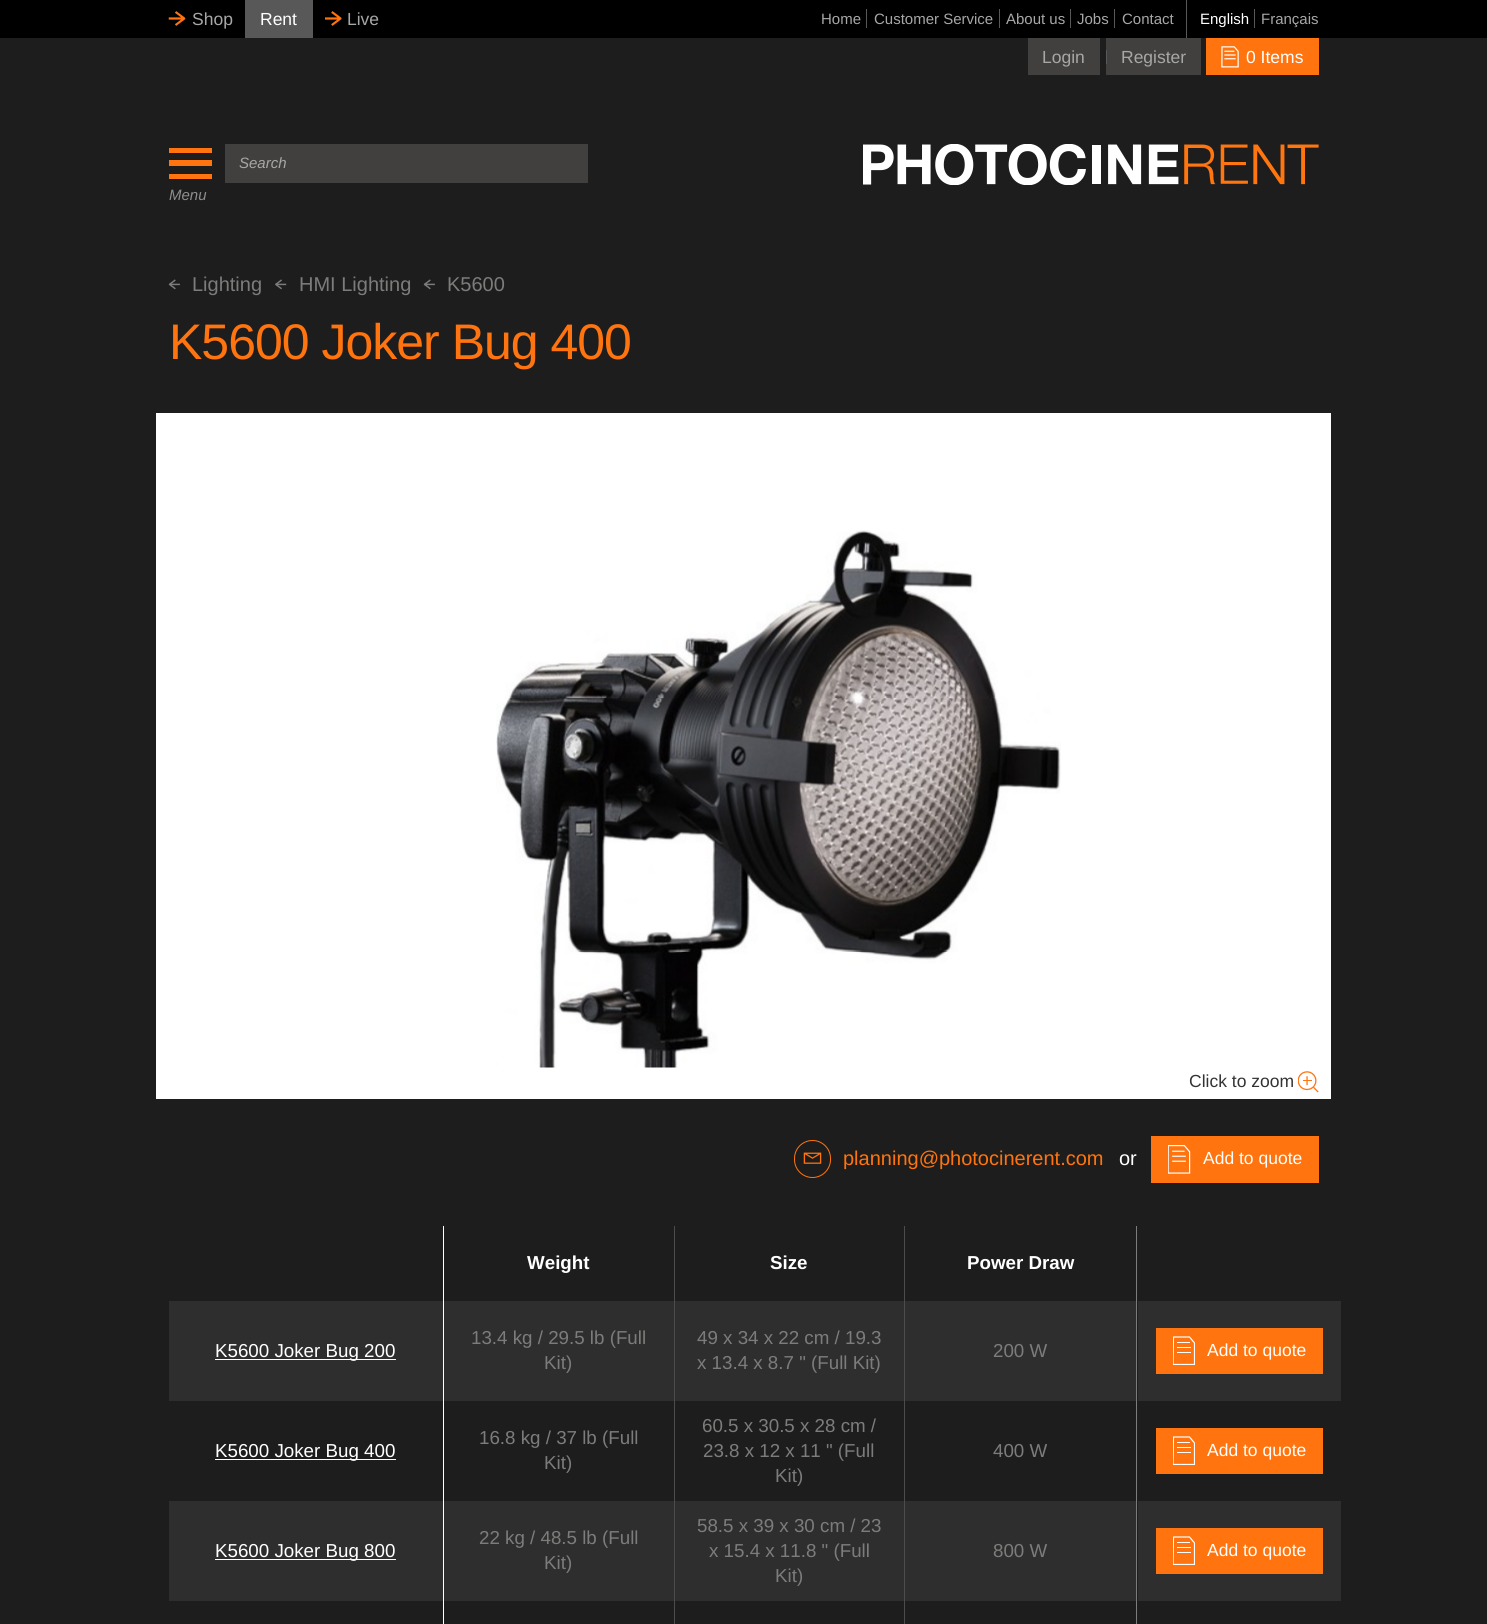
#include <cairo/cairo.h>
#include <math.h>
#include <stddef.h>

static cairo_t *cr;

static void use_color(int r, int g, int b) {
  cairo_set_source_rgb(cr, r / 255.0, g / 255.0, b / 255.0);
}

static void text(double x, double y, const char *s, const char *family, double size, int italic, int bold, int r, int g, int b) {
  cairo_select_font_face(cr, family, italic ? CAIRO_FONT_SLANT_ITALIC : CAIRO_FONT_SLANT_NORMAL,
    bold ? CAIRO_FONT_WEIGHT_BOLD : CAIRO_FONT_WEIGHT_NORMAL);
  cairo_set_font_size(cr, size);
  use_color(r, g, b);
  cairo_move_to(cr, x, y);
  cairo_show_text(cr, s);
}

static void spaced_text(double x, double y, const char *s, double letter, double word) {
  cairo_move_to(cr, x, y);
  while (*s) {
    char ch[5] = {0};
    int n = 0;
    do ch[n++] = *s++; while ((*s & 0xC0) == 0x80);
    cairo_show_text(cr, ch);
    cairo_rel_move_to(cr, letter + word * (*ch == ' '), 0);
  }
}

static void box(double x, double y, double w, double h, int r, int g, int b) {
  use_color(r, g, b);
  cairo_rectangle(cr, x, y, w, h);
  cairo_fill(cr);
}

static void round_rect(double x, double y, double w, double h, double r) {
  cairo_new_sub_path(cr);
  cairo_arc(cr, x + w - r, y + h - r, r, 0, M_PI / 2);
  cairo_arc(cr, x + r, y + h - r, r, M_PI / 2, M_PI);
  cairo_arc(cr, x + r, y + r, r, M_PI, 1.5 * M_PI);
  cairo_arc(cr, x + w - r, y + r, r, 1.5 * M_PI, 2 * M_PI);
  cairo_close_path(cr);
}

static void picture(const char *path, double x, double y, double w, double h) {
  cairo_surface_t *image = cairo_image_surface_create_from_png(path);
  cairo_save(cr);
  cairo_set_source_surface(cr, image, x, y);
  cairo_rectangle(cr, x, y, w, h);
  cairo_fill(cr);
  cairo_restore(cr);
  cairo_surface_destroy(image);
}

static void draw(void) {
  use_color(29, 29, 29);
  cairo_paint(cr);
  box(0, 0, 1487, 38, 0, 0, 0);
  picture("img_01.png", 168, 11, 18, 15);
  box(245, 0, 68, 38, 88, 88, 88);
  picture("img_02.png", 325, 11, 17, 15);
  box(1186, 0, 1, 38, 88, 88, 88);
  box(866, 9, 1, 19, 88, 88, 88);
  box(999, 9, 1, 19, 88, 88, 88);
  box(1070, 9, 1, 19, 88, 88, 88);
  box(1114, 9, 1, 19, 88, 88, 88);
  box(1254, 9, 1, 19, 88, 88, 88);
  box(1028, 38, 72, 37, 66, 64, 63);
  box(1106, 38, 95, 37, 66, 64, 63);
  box(1106, 50, 1, 14, 88, 88, 88);
  box(1206, 38, 113, 37, 255, 116, 14);
  picture("img_03.png", 1221, 46, 18, 22);
  cairo_new_path(cr);
  cairo_move_to(cr, 169, 166);
  cairo_line_to(cr, 212, 166);
  cairo_line_to(cr, 212, 160);
  cairo_line_to(cr, 169, 160);
  cairo_move_to(cr, 169, 179);
  cairo_line_to(cr, 212, 179);
  cairo_line_to(cr, 212, 174);
  cairo_line_to(cr, 169, 174);
  cairo_move_to(cr, 169, 153);
  cairo_line_to(cr, 212, 153);
  cairo_line_to(cr, 212, 148);
  cairo_line_to(cr, 169, 148);
  cairo_fill(cr);
  box(225, 144, 363, 39, 66, 64, 63);
  picture("img_04.png", 863, 144, 456, 41);
  picture("img_05.png", 168, 279, 12, 11);
  picture("img_06.png", 275, 279, 12, 11);
  picture("img_05.png", 423, 279, 12, 11);
  box(156, 413, 1175, 686, 255, 255, 255);
  picture("img_07.png", 496, 530, 565, 538);
  picture("img_08.png", 1298, 1071, 21, 22);
  round_rect(794.5, 1140.5, 36, 37, 18);
  use_color(255, 116, 14);
  cairo_set_line_width(cr, 1);
  cairo_stroke(cr);
  picture("img_09.png", 803, 1152, 19, 12);
  box(1151, 1136, 168, 47, 255, 116, 14);
  picture("img_10.png", 1168, 1145, 23, 29);
  box(443, 1226, 1, 398, 255, 255, 255);
  box(169, 1301, 274, 100, 46, 46, 46);
  box(215, 1359, 181, 1, 255, 255, 255);
  box(215, 1459, 181, 1, 255, 255, 255);
  box(169, 1501, 274, 100, 46, 46, 46);
  box(215, 1559, 181, 1, 255, 255, 255);
  box(674, 1226, 1, 398, 77, 75, 75);
  box(904, 1226, 1, 398, 77, 75, 75);
  box(444, 1301, 230, 100, 46, 46, 46);
  box(675, 1301, 229, 100, 46, 46, 46);
  box(905, 1301, 231, 100, 46, 46, 46);
  box(444, 1501, 230, 100, 46, 46, 46);
  box(675, 1501, 229, 100, 46, 46, 46);
  box(905, 1501, 231, 100, 46, 46, 46);
  box(1136, 1226, 1, 398, 124, 124, 124);
  box(1138, 1301, 203, 100, 46, 46, 46);
  box(1156, 1328, 167, 46, 255, 116, 14);
  cairo_save(cr);
  cairo_rectangle(cr, 1173, 1336, 22, 29);
  cairo_clip(cr);
  cairo_new_path(cr);
  cairo_move_to(cr, 1173.5, 1337);
  cairo_line_to(cr, 1189.5, 1337);
  cairo_line_to(cr, 1194.5, 1343);
  cairo_line_to(cr, 1194.5, 1364.5);
  cairo_line_to(cr, 1173, 1364.5);
  cairo_close_path(cr);
  use_color(255, 255, 255);
  cairo_set_line_width(cr, 1.2);
  cairo_stroke(cr);
  cairo_restore(cr);
  box(1177, 1352, 14, 1, 255, 255, 255);
  box(1177, 1347, 14, 1, 255, 255, 255);
  box(1177, 1342, 13, 1, 255, 255, 255);
  box(1156, 1428, 167, 46, 255, 116, 14);
  cairo_save(cr);
  cairo_rectangle(cr, 1173, 1436, 22, 29);
  cairo_clip(cr);
  cairo_new_path(cr);
  cairo_move_to(cr, 1173.5, 1437);
  cairo_line_to(cr, 1189.5, 1437);
  cairo_line_to(cr, 1194.5, 1443);
  cairo_line_to(cr, 1194.5, 1464.5);
  cairo_line_to(cr, 1173, 1464.5);
  cairo_close_path(cr);
  use_color(255, 255, 255);
  cairo_set_line_width(cr, 1.2);
  cairo_stroke(cr);
  cairo_restore(cr);
  box(1177, 1452, 14, 1, 255, 255, 255);
  box(1177, 1447, 14, 1, 255, 255, 255);
  box(1177, 1442, 13, 1, 255, 255, 255);
  box(1138, 1501, 203, 100, 46, 46, 46);
  box(1156, 1528, 167, 46, 255, 116, 14);
  cairo_save(cr);
  cairo_rectangle(cr, 1173, 1536, 22, 29);
  cairo_clip(cr);
  cairo_new_path(cr);
  cairo_move_to(cr, 1173.5, 1537);
  cairo_line_to(cr, 1189.5, 1537);
  cairo_line_to(cr, 1194.5, 1543);
  cairo_line_to(cr, 1194.5, 1564.5);
  cairo_line_to(cr, 1173, 1564.5);
  cairo_close_path(cr);
  use_color(255, 255, 255);
  cairo_set_line_width(cr, 1.2);
  cairo_stroke(cr);
  cairo_restore(cr);
  box(1177, 1552, 14, 1, 255, 255, 255);
  box(1177, 1547, 14, 1, 255, 255, 255);
  box(1177, 1542, 13, 1, 255, 255, 255);
  text(192, 25, "Shop", "Liberation Sans", 17.5, 0, 0, 166, 167, 166);
  text(260, 25, "Rent", "Liberation Sans", 17.5, 0, 0, 255, 255, 255);
  text(347, 25, "Live", "Liberation Sans", 17.5, 0, 0, 166, 167, 166);
  text(821, 24, "Home", "Liberation Sans", 15, 0, 0, 166, 167, 166);
  text(874, 24, "Customer Service", "Liberation Sans", 15, 0, 0, 166, 167, 166);
  text(1006, 24, "About us", "Liberation Sans", 15, 0, 0, 166, 167, 166);
  text(1077, 24, "Jobs", "Liberation Sans", 15, 0, 0, 166, 167, 166);
  text(1122, 24, "Contact", "Liberation Sans", 15, 0, 0, 166, 167, 166);
  text(1200, 24, "English", "Liberation Sans", 15, 0, 0, 255, 255, 255);
  text(1261, 24, "Français", "Liberation Sans", 15, 0, 0, 166, 167, 166);
  text(1042, 63, "Login", "Liberation Sans", 17.5, 0, 0, 166, 167, 166);
  text(1121, 63, "Register", "Liberation Sans", 17.5, 0, 0, 166, 167, 166);
  text(1246, 63, "0 Items", "Liberation Sans", 17.5, 0, 0, 255, 255, 255);
  text(239, 168, "Search", "Liberation Sans", 15, 1, 0, 166, 167, 166);
  text(169, 200, "Menu", "Liberation Sans", 15, 1, 0, 142, 142, 142);
  text(192, 291, "Lighting", "Liberation Sans", 20, 0, 0, 124, 124, 123);
  text(299, 291, "HMI Lighting", "Liberation Sans", 20, 0, 0, 124, 124, 123);
  text(447, 291, "K5600", "Liberation Sans", 20, 0, 0, 124, 124, 123);
  cairo_set_font_size(cr, 50);
  use_color(255, 116, 14);
  spaced_text(169, 359, "K5600 Joker Bug 400", -1, 0);
  text(1189, 1087, "Click to zoom", "Liberation Sans", 17.5, 0, 0, 51, 51, 51);
  text(843, 1165, "planning@photocinerent.com", "Liberation Sans", 20, 0, 0, 255, 116, 14);
  text(1119, 1165, "or", "Liberation Sans", 20, 0, 0, 255, 255, 255);
  text(1203, 1164, "Add to quote", "Liberation Sans", 17.5, 0, 0, 255, 255, 255);
  text(215, 1357, "K5600 Joker Bug 200", "Liberation Sans", 18.75, 0, 0, 255, 255, 255);
  text(215, 1457, "K5600 Joker Bug 400", "Liberation Sans", 18.75, 0, 0, 255, 255, 255);
  text(215, 1557, "K5600 Joker Bug 800", "Liberation Sans", 18.75, 0, 0, 255, 255, 255);
  text(527, 1269, "Weight", "Liberation Sans", 18.75, 0, 1, 255, 255, 255);
  text(770, 1269, "Size", "Liberation Sans", 18.75, 0, 1, 255, 255, 255);
  text(967, 1269, "Power Draw", "Liberation Sans", 18.75, 0, 1, 255, 255, 255);
  text(471, 1344, "13.4 kg / 29.5 lb (Full", "Liberation Sans", 18.75, 0, 0, 124, 124, 123);
  text(544, 1369, "Kit)", "Liberation Sans", 18.75, 0, 0, 124, 124, 123);
  text(697, 1344, "49 x 34 x 22 cm / 19.3", "Liberation Sans", 18.75, 0, 0, 124, 124, 123);
  text(697, 1369, "x 13.4 x 8.7 \" (Full Kit)", "Liberation Sans", 18.75, 0, 0, 124, 124, 123);
  text(993, 1357, "200 W", "Liberation Sans", 18.75, 0, 0, 124, 124, 123);
  text(479, 1444, "16.8 kg / 37 lb (Full", "Liberation Sans", 18.75, 0, 0, 124, 124, 123);
  text(544, 1469, "Kit)", "Liberation Sans", 18.75, 0, 0, 124, 124, 123);
  text(702, 1432, "60.5 x 30.5 x 28 cm /", "Liberation Sans", 18.75, 0, 0, 124, 124, 123);
  text(703, 1457, "23.8 x 12 x 11 \" (Full", "Liberation Sans", 18.75, 0, 0, 124, 124, 123);
  text(775, 1482, "Kit)", "Liberation Sans", 18.75, 0, 0, 124, 124, 123);
  text(993, 1457, "400 W", "Liberation Sans", 18.75, 0, 0, 124, 124, 123);
  text(479, 1544, "22 kg / 48.5 lb (Full", "Liberation Sans", 18.75, 0, 0, 124, 124, 123);
  text(544, 1569, "Kit)", "Liberation Sans", 18.75, 0, 0, 124, 124, 123);
  text(697, 1532, "58.5 x 39 x 30 cm / 23", "Liberation Sans", 18.75, 0, 0, 124, 124, 123);
  text(709, 1557, "x 15.4 x 11.8 \" (Full", "Liberation Sans", 18.75, 0, 0, 124, 124, 123);
  text(775, 1582, "Kit)", "Liberation Sans", 18.75, 0, 0, 124, 124, 123);
  text(993, 1557, "800 W", "Liberation Sans", 18.75, 0, 0, 124, 124, 123);
  text(1207, 1356, "Add to quote", "Liberation Sans", 17.5, 0, 0, 255, 255, 255);
  text(1207, 1456, "Add to quote", "Liberation Sans", 17.5, 0, 0, 255, 255, 255);
  text(1207, 1556, "Add to quote", "Liberation Sans", 17.5, 0, 0, 255, 255, 255);
}

int main(void) {
  cairo_surface_t *surface = cairo_image_surface_create(CAIRO_FORMAT_RGB24, 1487, 1624);
  cr = cairo_create(surface);
  cairo_font_options_t *options = cairo_font_options_create();
  cairo_font_options_set_hint_metrics(options, CAIRO_HINT_METRICS_OFF);
  cairo_font_options_set_hint_style(options, CAIRO_HINT_STYLE_NONE);
  cairo_set_font_options(cr, options);
  cairo_set_miter_limit(cr, 4);
  draw();
  cairo_surface_write_to_png(surface, "out.png");
  cairo_font_options_destroy(options);
  cairo_destroy(cr);
  cairo_surface_destroy(surface);
  return 0;
}
